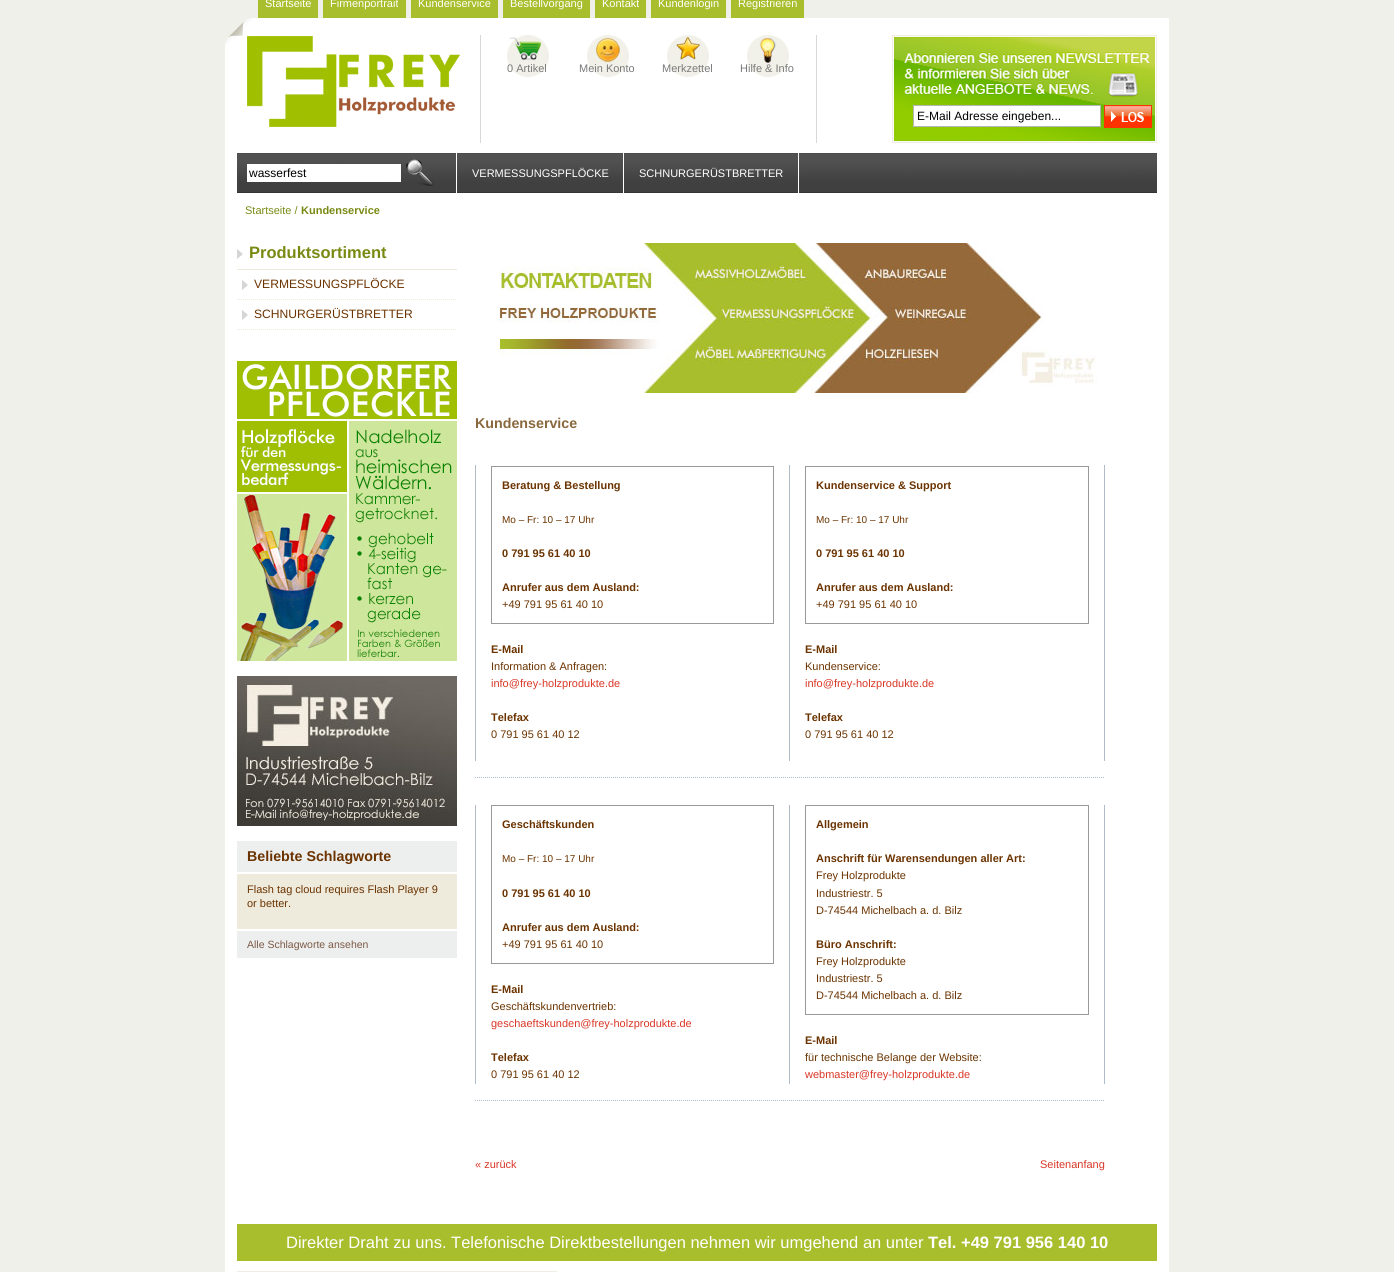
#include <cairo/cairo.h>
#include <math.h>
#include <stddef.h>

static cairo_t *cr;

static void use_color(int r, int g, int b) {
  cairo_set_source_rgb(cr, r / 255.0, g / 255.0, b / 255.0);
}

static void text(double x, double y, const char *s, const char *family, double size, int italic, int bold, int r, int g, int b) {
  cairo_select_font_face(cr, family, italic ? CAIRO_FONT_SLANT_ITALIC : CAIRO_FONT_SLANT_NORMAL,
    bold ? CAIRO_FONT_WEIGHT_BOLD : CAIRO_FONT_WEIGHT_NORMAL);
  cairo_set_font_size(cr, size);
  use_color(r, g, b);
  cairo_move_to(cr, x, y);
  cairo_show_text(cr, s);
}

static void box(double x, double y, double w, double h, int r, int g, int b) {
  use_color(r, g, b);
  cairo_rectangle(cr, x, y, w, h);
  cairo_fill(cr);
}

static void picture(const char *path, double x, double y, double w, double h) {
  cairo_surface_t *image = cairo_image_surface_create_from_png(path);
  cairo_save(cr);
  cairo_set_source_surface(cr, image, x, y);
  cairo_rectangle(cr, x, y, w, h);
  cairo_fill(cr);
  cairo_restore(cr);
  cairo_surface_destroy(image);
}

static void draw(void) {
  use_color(240, 240, 234);
  cairo_paint(cr);
  box(258, 0, 60, 18, 168, 190, 44);
  box(323, 0, 83, 18, 168, 190, 44);
  box(411, 0, 87, 18, 168, 190, 44);
  box(503, 0, 87, 18, 168, 190, 44);
  box(595, 0, 51, 18, 168, 190, 44);
  box(651, 0, 75, 18, 168, 190, 44);
  box(731, 0, 73, 18, 168, 190, 44);
  box(225, 18, 944, 1254, 255, 255, 255);
  picture("img_01.png", 225, 18, 27, 27);
  box(480, 35, 1, 108, 215, 215, 215);
  picture("img_02.png", 247, 36, 213, 91);
  picture("img_03.png", 507, 35, 42, 42);
  picture("img_04.png", 587, 35, 42, 42);
  picture("img_05.png", 667, 35, 42, 42);
  picture("img_06.png", 747, 35, 42, 42);
  picture("img_07.png", 892, 35, 265, 108);
  box(816, 35, 1, 108, 215, 215, 215);
  use_color(255, 255, 255);
  cairo_rectangle(cr, 913.5, 105.5, 187, 21);
  cairo_fill_preserve(cr);
  use_color(182, 182, 182);
  cairo_set_line_width(cr, 1);
  cairo_stroke(cr);
  picture("img_08.png", 1104, 105, 48, 23);
  picture("img_09.png", 457, 153, 700, 40);
  picture("img_10.png", 237, 153, 219, 40);
  box(247, 164, 154, 18, 255, 255, 255);
  picture("img_11.png", 406, 159, 27, 27);
  box(623, 153, 1, 40, 255, 255, 255);
  box(798, 153, 1, 40, 255, 255, 255);
  picture("img_12.png", 237, 249, 6, 10);
  box(237, 269, 220, 1, 238, 234, 220);
  cairo_new_path(cr);
  cairo_move_to(cr, 237, 299.5);
  cairo_line_to(cr, 457, 299.5);
  cairo_set_dash(cr, (double[]){1, 1}, 2, 0);
  cairo_stroke(cr);
  picture("img_13.png", 242, 280, 6, 10);
  cairo_new_path(cr);
  cairo_move_to(cr, 237, 329.5);
  cairo_line_to(cr, 457, 329.5);
  cairo_stroke(cr);
  picture("img_13.png", 242, 310, 6, 10);
  picture("img_14.png", 237, 361, 220, 300);
  picture("img_15.png", 237, 676, 220, 150);
  box(237, 841, 220, 31, 237, 239, 239);
  box(237, 874, 220, 55, 238, 234, 220);
  box(237, 931, 220, 27, 237, 239, 239);
  picture("img_16.png", 499, 243, 598, 150);
  box(789, 465, 1, 296, 177, 188, 201);
  box(475, 465, 1, 296, 177, 188, 201);
  box(491, 466, 283, 1, 153, 153, 153);
  box(773, 466, 1, 158, 153, 153, 153);
  box(491, 623, 283, 1, 153, 153, 153);
  box(491, 466, 1, 158, 153, 153, 153);
  box(1104, 465, 1, 296, 177, 188, 201);
  box(805, 466, 284, 1, 153, 153, 153);
  box(1088, 466, 1, 158, 153, 153, 153);
  box(805, 623, 284, 1, 153, 153, 153);
  box(805, 466, 1, 158, 153, 153, 153);
  cairo_new_path(cr);
  cairo_move_to(cr, 475, 777.5);
  cairo_line_to(cr, 1105, 777.5);
  use_color(177, 188, 201);
  cairo_stroke(cr);
  box(789, 805, 1, 279, 177, 188, 201);
  box(475, 805, 1, 279, 177, 188, 201);
  box(491, 805, 283, 1, 153, 153, 153);
  box(773, 805, 1, 159, 153, 153, 153);
  box(491, 963, 283, 1, 153, 153, 153);
  box(491, 805, 1, 159, 153, 153, 153);
  box(1104, 805, 1, 279, 177, 188, 201);
  box(805, 805, 284, 1, 153, 153, 153);
  box(1088, 805, 1, 210, 153, 153, 153);
  box(805, 1014, 284, 1, 153, 153, 153);
  box(805, 805, 1, 210, 153, 153, 153);
  cairo_new_path(cr);
  cairo_move_to(cr, 475, 1100.5);
  cairo_line_to(cr, 1105, 1100.5);
  use_color(177, 188, 201);
  cairo_stroke(cr);
  box(237, 1224, 920, 37, 168, 190, 44);
  box(237, 1271, 320, 1, 241, 237, 227);
  text(265, 7, "Startseite", "Liberation Sans", 11, 0, 0, 255, 255, 255);
  text(330, 7, "Firmenportrait", "Liberation Sans", 11, 0, 0, 255, 255, 255);
  text(418, 7, "Kundenservice", "Liberation Sans", 11, 0, 0, 255, 255, 255);
  text(510, 7, "Bestellvorgang", "Liberation Sans", 11, 0, 0, 255, 255, 255);
  text(602, 7, "Kontakt", "Liberation Sans", 11, 0, 0, 255, 255, 255);
  text(658, 7, "Kundenlogin", "Liberation Sans", 11, 0, 0, 255, 255, 255);
  text(738, 7, "Registrieren", "Liberation Sans", 11, 0, 0, 255, 255, 255);
  text(507, 72, "0 Artikel", "Liberation Sans", 11, 0, 0, 121, 121, 121);
  text(579, 72, "Mein Konto", "Liberation Sans", 11, 0, 0, 121, 121, 121);
  text(662, 72, "Merkzettel", "Liberation Sans", 11, 0, 0, 121, 121, 121);
  text(740, 72, "Hilfe & Info", "Liberation Sans", 11, 0, 0, 121, 121, 121);
  text(917, 120, "E-Mail Adresse eingeben...", "Liberation Sans", 12, 0, 0, 0, 0, 0);
  text(249, 177, "wasserfest", "Liberation Sans", 12, 0, 0, 0, 0, 0);
  text(472, 177, "VERMESSUNGSPFLÖCKE", "Liberation Sans", 11, 0, 0, 255, 255, 255);
  text(639, 177, "SCHNURGERÜSTBRETTER", "Liberation Sans", 11, 0, 0, 255, 255, 255);
  text(245, 214, "Startseite /", "Liberation Sans", 11, 0, 0, 121, 138, 19);
  text(301, 214, "Kundenservice", "Liberation Sans", 11, 0, 1, 121, 138, 19);
  text(249, 258, "Produktsortiment", "Liberation Sans", 16.5, 0, 1, 121, 138, 19);
  text(254, 288, "VERMESSUNGSPFLÖCKE", "Liberation Sans", 12.1, 0, 0, 107, 51, 0);
  text(254, 318, "SCHNURGERÜSTBRETTER", "Liberation Sans", 12.1, 0, 0, 107, 51, 0);
  text(247, 861, "Beliebte Schlagworte", "Liberation Sans", 14.25, 0, 1, 107, 51, 0);
  text(247, 893, "Flash tag cloud requires Flash Player 9", "Liberation Sans", 11, 0, 0, 107, 51, 0);
  text(247, 907, "or better.", "Liberation Sans", 11, 0, 0, 107, 51, 0);
  text(247, 948, "Alle Schlagworte ansehen", "Liberation Sans", 10.5, 0, 0, 124, 88, 68);
  text(475, 428, "Kundenservice", "Liberation Sans", 14.25, 0, 1, 137, 104, 61);
  text(502, 489, "Beratung & Bestellung", "Liberation Sans", 11, 0, 1, 107, 51, 0);
  text(502, 523, "Mo – Fr: 10 – 17 Uhr", "Liberation Sans", 10, 0, 0, 107, 51, 0);
  text(502, 557, "0 791 95 61 40 10", "Liberation Sans", 11, 0, 1, 107, 51, 0);
  text(502, 591, "Anrufer aus dem Ausland:", "Liberation Sans", 11, 0, 1, 107, 51, 0);
  text(502, 608, "+49 791 95 61 40 10", "Liberation Sans", 11, 0, 0, 107, 51, 0);
  text(491, 653, "E-Mail", "Liberation Sans", 11, 0, 1, 107, 51, 0);
  text(491, 670, "Information & Anfragen:", "Liberation Sans", 11, 0, 0, 107, 51, 0);
  text(491, 687, "info@frey-holzprodukte.de", "Liberation Sans", 11, 0, 0, 217, 54, 37);
  text(491, 721, "Telefax", "Liberation Sans", 11, 0, 1, 107, 51, 0);
  text(491, 738, "0 791 95 61 40 12", "Liberation Sans", 11, 0, 0, 107, 51, 0);
  text(816, 489, "Kundenservice & Support", "Liberation Sans", 11, 0, 1, 107, 51, 0);
  text(816, 523, "Mo – Fr: 10 – 17 Uhr", "Liberation Sans", 10, 0, 0, 107, 51, 0);
  text(816, 557, "0 791 95 61 40 10", "Liberation Sans", 11, 0, 1, 107, 51, 0);
  text(816, 591, "Anrufer aus dem Ausland:", "Liberation Sans", 11, 0, 1, 107, 51, 0);
  text(816, 608, "+49 791 95 61 40 10", "Liberation Sans", 11, 0, 0, 107, 51, 0);
  text(805, 653, "E-Mail", "Liberation Sans", 11, 0, 1, 107, 51, 0);
  text(805, 670, "Kundenservice:", "Liberation Sans", 11, 0, 0, 107, 51, 0);
  text(805, 687, "info@frey-holzprodukte.de", "Liberation Sans", 11, 0, 0, 217, 54, 37);
  text(805, 721, "Telefax", "Liberation Sans", 11, 0, 1, 107, 51, 0);
  text(805, 738, "0 791 95 61 40 12", "Liberation Sans", 11, 0, 0, 107, 51, 0);
  text(502, 828, "Geschäftskunden", "Liberation Sans", 11, 0, 1, 107, 51, 0);
  text(502, 862, "Mo – Fr: 10 – 17 Uhr", "Liberation Sans", 10, 0, 0, 107, 51, 0);
  text(502, 897, "0 791 95 61 40 10", "Liberation Sans", 11, 0, 1, 107, 51, 0);
  text(502, 931, "Anrufer aus dem Ausland:", "Liberation Sans", 11, 0, 1, 107, 51, 0);
  text(502, 948, "+49 791 95 61 40 10", "Liberation Sans", 11, 0, 0, 107, 51, 0);
  text(491, 993, "E-Mail", "Liberation Sans", 11, 0, 1, 107, 51, 0);
  text(491, 1010, "Geschäftskundenvertrieb:", "Liberation Sans", 11, 0, 0, 107, 51, 0);
  text(491, 1027, "geschaeftskunden@frey-holzprodukte.de", "Liberation Sans", 11, 0, 0, 217, 54, 37);
  text(491, 1061, "Telefax", "Liberation Sans", 11, 0, 1, 107, 51, 0);
  text(491, 1078, "0 791 95 61 40 12", "Liberation Sans", 11, 0, 0, 107, 51, 0);
  text(816, 828, "Allgemein", "Liberation Sans", 11, 0, 1, 107, 51, 0);
  text(816, 862, "Anschrift für Warensendungen aller Art:", "Liberation Sans", 11, 0, 1, 107, 51, 0);
  text(816, 879, "Frey Holzprodukte", "Liberation Sans", 11, 0, 0, 107, 51, 0);
  text(816, 897, "Industriestr. 5", "Liberation Sans", 11, 0, 0, 107, 51, 0);
  text(816, 914, "D-74544 Michelbach a. d. Bilz", "Liberation Sans", 11, 0, 0, 107, 51, 0);
  text(816, 948, "Büro Anschrift:", "Liberation Sans", 11, 0, 1, 107, 51, 0);
  text(816, 965, "Frey Holzprodukte", "Liberation Sans", 11, 0, 0, 107, 51, 0);
  text(816, 982, "Industriestr. 5", "Liberation Sans", 11, 0, 0, 107, 51, 0);
  text(816, 999, "D-74544 Michelbach a. d. Bilz", "Liberation Sans", 11, 0, 0, 107, 51, 0);
  text(805, 1044, "E-Mail", "Liberation Sans", 11, 0, 1, 107, 51, 0);
  text(805, 1061, "für technische Belange der Website:", "Liberation Sans", 11, 0, 0, 107, 51, 0);
  text(805, 1078, "webmaster@frey-holzprodukte.de", "Liberation Sans", 11, 0, 0, 217, 54, 37);
  text(475, 1168, "« zurück", "Liberation Sans", 11, 0, 0, 217, 54, 37);
  text(1040, 1168, "Seitenanfang", "Liberation Sans", 11, 0, 0, 217, 54, 37);
  text(286, 1248, "Direkter Draht zu uns. Telefonische Direktbestellungen nehmen wir umgehend an unter", "Liberation Sans", 16.5, 0, 0, 255, 255, 255);
  text(928, 1248, "Tel. +49 791 956 140 10", "Liberation Sans", 16.5, 0, 1, 255, 255, 255);
}

int main(void) {
  cairo_surface_t *surface = cairo_image_surface_create(CAIRO_FORMAT_RGB24, 1394, 1272);
  cr = cairo_create(surface);
  cairo_font_options_t *options = cairo_font_options_create();
  cairo_font_options_set_hint_metrics(options, CAIRO_HINT_METRICS_OFF);
  cairo_font_options_set_hint_style(options, CAIRO_HINT_STYLE_NONE);
  cairo_set_font_options(cr, options);
  cairo_set_miter_limit(cr, 4);
  draw();
  cairo_surface_write_to_png(surface, "out.png");
  cairo_font_options_destroy(options);
  cairo_destroy(cr);
  cairo_surface_destroy(surface);
  return 0;
}
